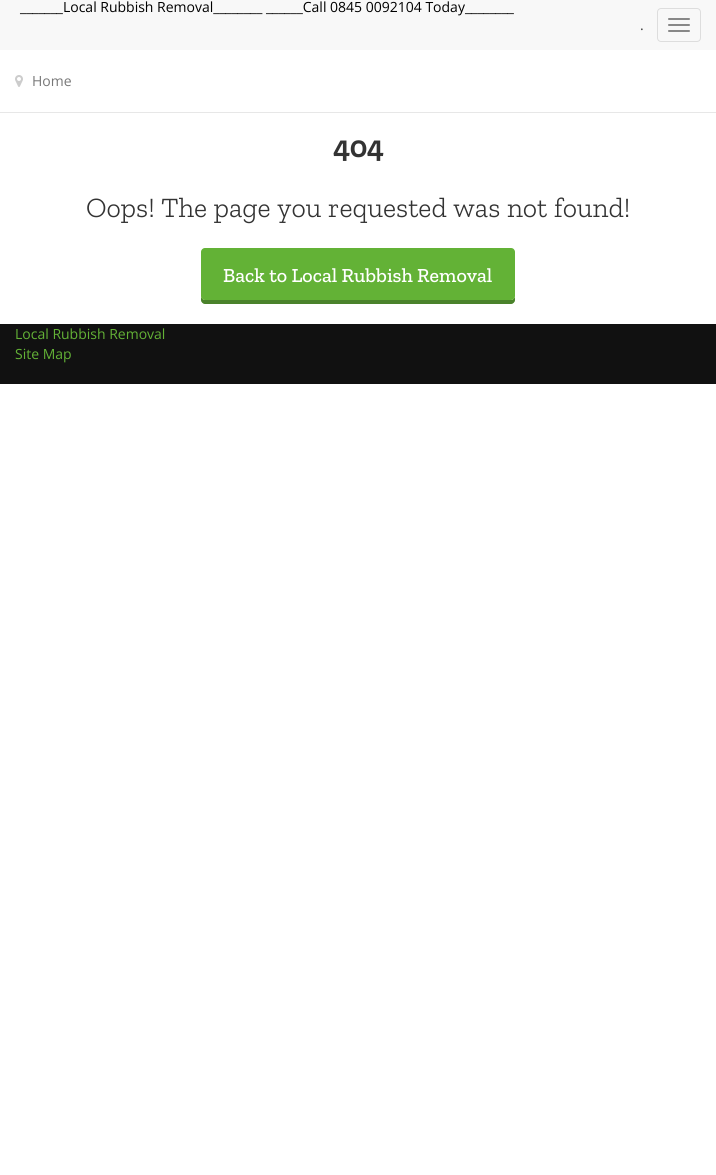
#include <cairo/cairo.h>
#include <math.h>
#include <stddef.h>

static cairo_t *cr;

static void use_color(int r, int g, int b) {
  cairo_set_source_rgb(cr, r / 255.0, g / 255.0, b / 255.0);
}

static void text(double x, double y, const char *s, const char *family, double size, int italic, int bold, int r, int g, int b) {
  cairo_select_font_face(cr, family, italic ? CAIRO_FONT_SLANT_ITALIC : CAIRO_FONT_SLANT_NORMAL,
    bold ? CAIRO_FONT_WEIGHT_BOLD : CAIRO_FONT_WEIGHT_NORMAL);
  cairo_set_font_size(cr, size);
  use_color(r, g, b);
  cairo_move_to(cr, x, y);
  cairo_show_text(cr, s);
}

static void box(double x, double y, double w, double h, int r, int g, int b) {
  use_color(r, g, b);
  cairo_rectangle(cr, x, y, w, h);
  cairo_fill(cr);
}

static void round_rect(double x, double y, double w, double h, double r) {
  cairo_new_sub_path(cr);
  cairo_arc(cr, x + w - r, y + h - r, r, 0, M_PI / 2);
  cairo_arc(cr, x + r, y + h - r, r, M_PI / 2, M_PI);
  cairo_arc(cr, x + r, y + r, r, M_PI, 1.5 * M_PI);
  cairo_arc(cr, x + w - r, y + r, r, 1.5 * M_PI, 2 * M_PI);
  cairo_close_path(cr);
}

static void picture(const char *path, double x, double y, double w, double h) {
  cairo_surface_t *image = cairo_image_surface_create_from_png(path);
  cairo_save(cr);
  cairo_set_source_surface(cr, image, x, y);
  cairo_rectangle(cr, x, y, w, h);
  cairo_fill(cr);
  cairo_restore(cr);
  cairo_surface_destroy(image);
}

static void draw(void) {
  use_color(255, 255, 255);
  cairo_paint(cr);
  box(0, 0, 716, 50, 248, 248, 248);
  round_rect(657.5, 8.5, 43, 33, 3.5);
  use_color(221, 221, 221);
  cairo_set_line_width(cr, 1);
  cairo_stroke(cr);
  use_color(136, 136, 136);
  round_rect(668, 18, 22, 2, 1);
  cairo_fill(cr);
  round_rect(668, 24, 22, 2, 1);
  cairo_fill(cr);
  round_rect(668, 30, 22, 2, 1);
  cairo_fill(cr);
  box(0, 112, 716, 1, 231, 231, 231);
  picture("img_01.png", 15, 75, 8, 12);
  use_color(99, 178, 54);
  cairo_new_path(cr);
  cairo_move_to(cr, 201, 296);
  cairo_line_to(cr, 201, 300);
  cairo_curve_to(cr, 201, 302, 203, 304, 205, 304);
  cairo_line_to(cr, 511, 304);
  cairo_curve_to(cr, 513, 304, 515, 302, 515, 300);
  cairo_line_to(cr, 515, 296);
  cairo_curve_to(cr, 515, 298, 513, 300, 511, 300);
  cairo_line_to(cr, 205, 300);
  cairo_curve_to(cr, 203, 300, 201, 298, 201, 296);
  cairo_close_path(cr);
  cairo_fill(cr);
  cairo_set_source_rgba(cr, 0.067, 0.067, 0.067, 0.3);
  cairo_new_path(cr);
  cairo_move_to(cr, 201, 296);
  cairo_line_to(cr, 201, 300);
  cairo_curve_to(cr, 201, 302, 203, 304, 205, 304);
  cairo_line_to(cr, 511, 304);
  cairo_curve_to(cr, 513, 304, 515, 302, 515, 300);
  cairo_line_to(cr, 515, 296);
  cairo_curve_to(cr, 515, 298, 513, 300, 511, 300);
  cairo_line_to(cr, 205, 300);
  cairo_curve_to(cr, 203, 300, 201, 298, 201, 296);
  cairo_close_path(cr);
  cairo_fill(cr);
  use_color(99, 178, 54);
  round_rect(201, 248, 314, 52, 4);
  cairo_fill(cr);
  box(0, 324, 716, 60, 17, 17, 17);
  text(20, 12, "_______Local Rubbish Removal________ ______Call 0845 0092104 Today________", "Open Sans", 14, 0, 0, 0, 0, 0);
  text(640, 30, ".", "Open Sans", 14, 0, 0, 68, 68, 68);
  text(32, 86, "Home", "Open Sans", 14, 0, 0, 119, 119, 119);
  text(333, 157, "404", "Zilla Slab", 30, 0, 1, 51, 51, 51);
  text(86, 217, "Oops! The page you requested was not found!", "Zilla Slab Light", 28, 0, 0, 51, 51, 51);
  text(223, 282, "Back to Local Rubbish Removal", "Zilla Slab Medium", 20, 0, 0, 255, 255, 255);
  text(15, 339, "Local Rubbish Removal", "Open Sans", 14, 0, 0, 99, 178, 54);
  text(15, 359, "Site Map", "Open Sans", 14, 0, 0, 99, 178, 54);
}

int main(void) {
  cairo_surface_t *surface = cairo_image_surface_create(CAIRO_FORMAT_RGB24, 716, 1175);
  cr = cairo_create(surface);
  cairo_font_options_t *options = cairo_font_options_create();
  cairo_font_options_set_hint_metrics(options, CAIRO_HINT_METRICS_OFF);
  cairo_font_options_set_hint_style(options, CAIRO_HINT_STYLE_NONE);
  cairo_set_font_options(cr, options);
  cairo_set_miter_limit(cr, 4);
  draw();
  cairo_surface_write_to_png(surface, "out.png");
  cairo_font_options_destroy(options);
  cairo_destroy(cr);
  cairo_surface_destroy(surface);
  return 0;
}
